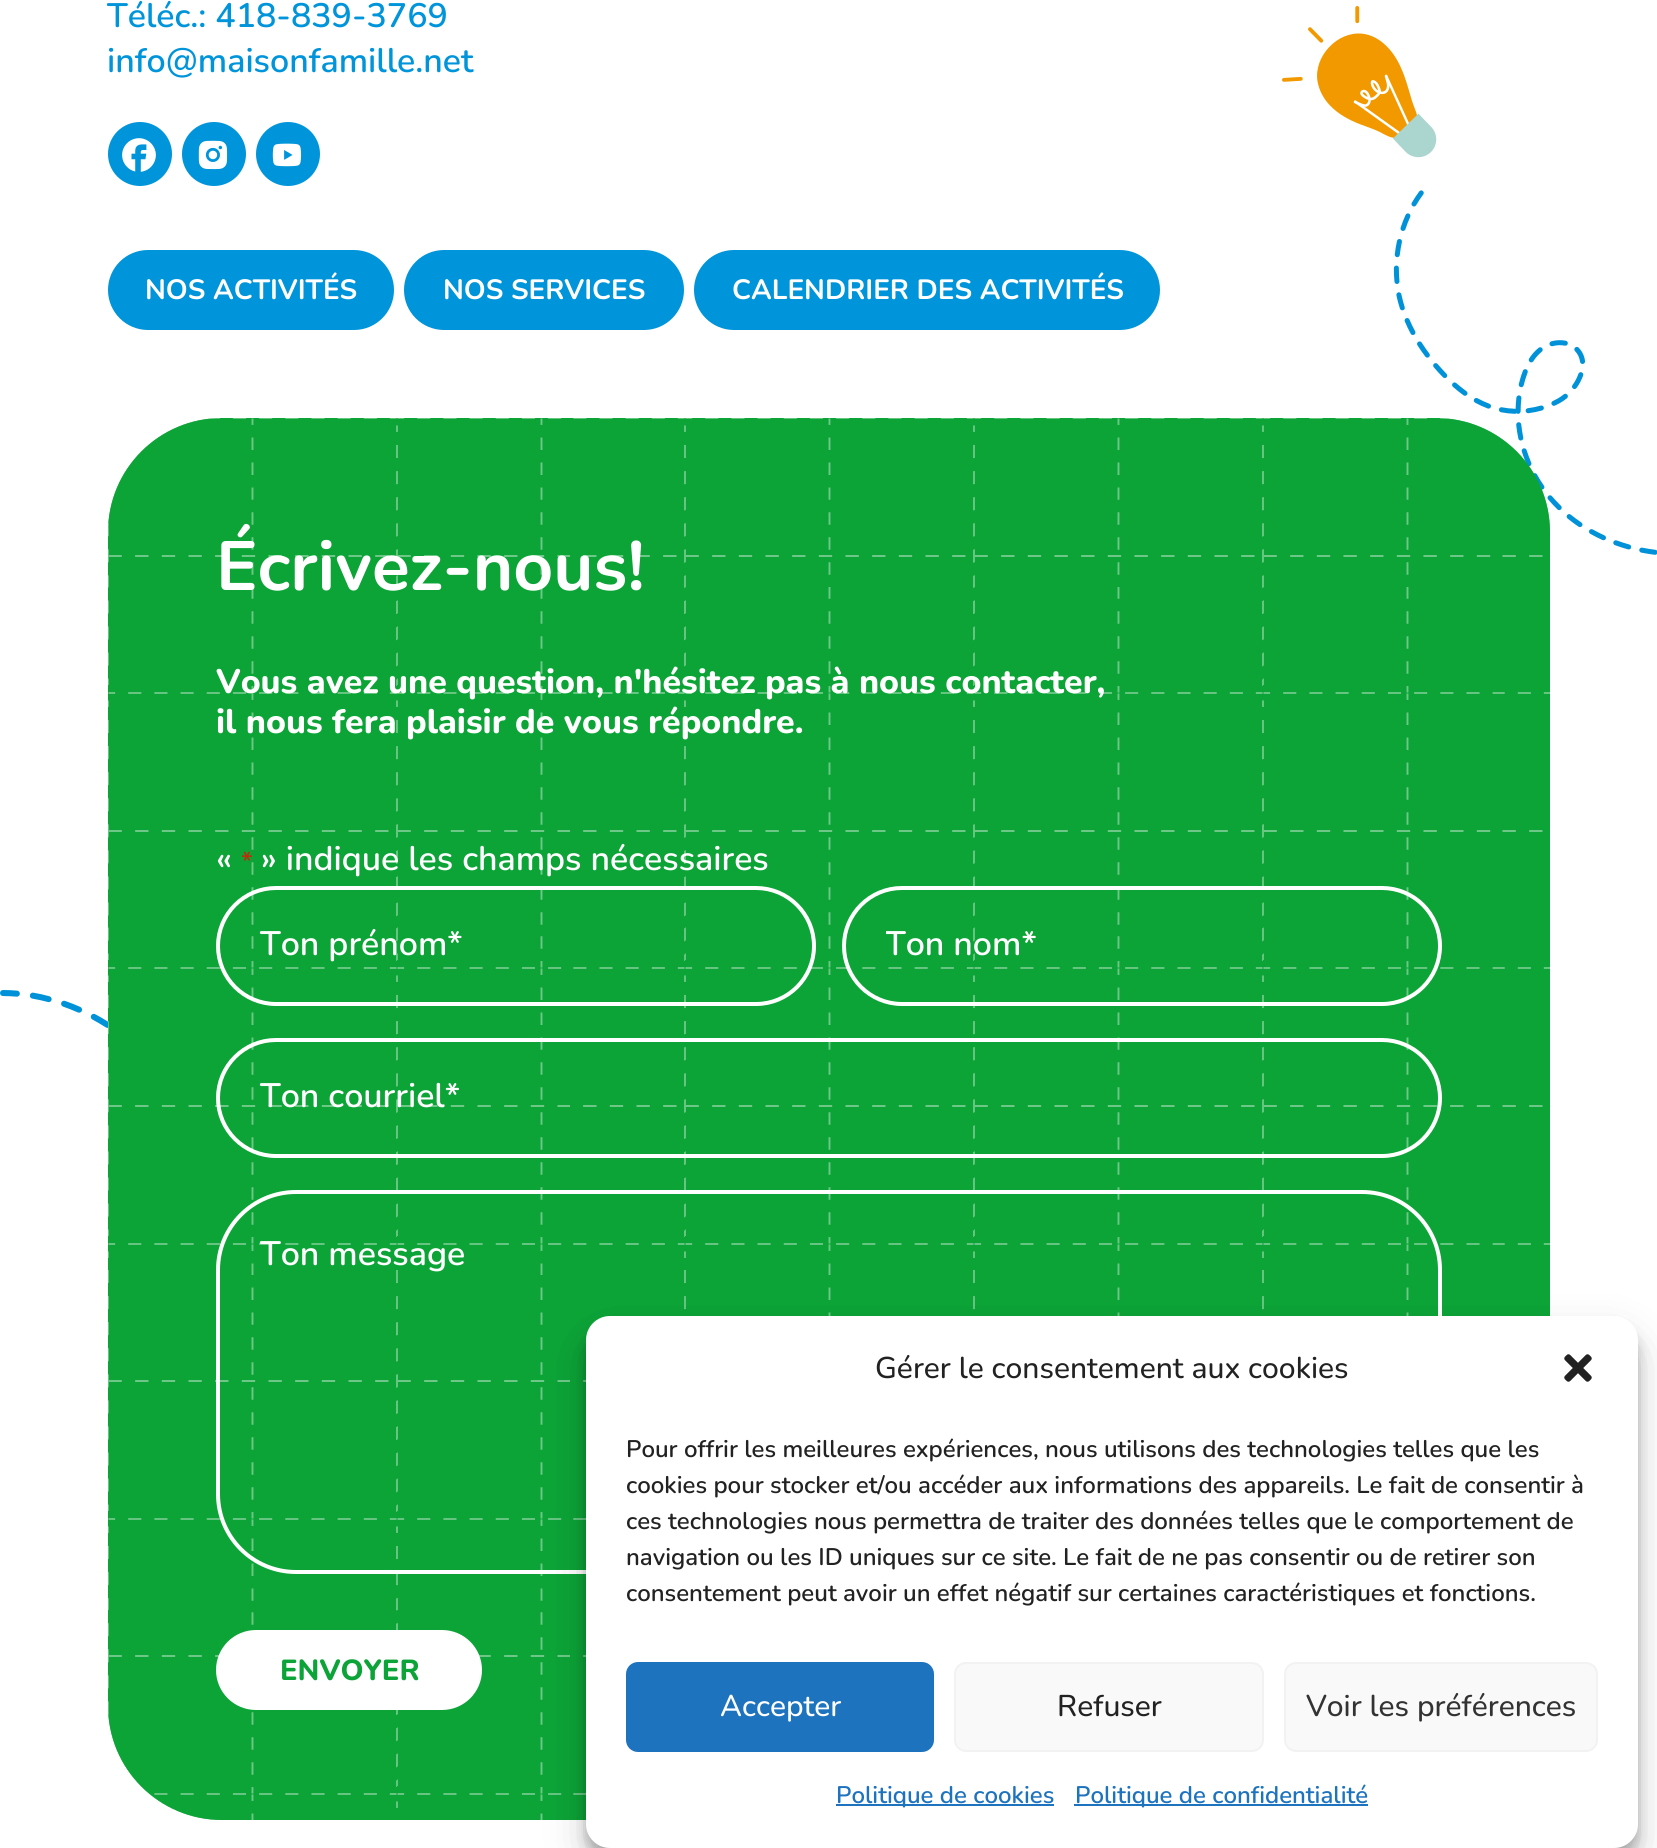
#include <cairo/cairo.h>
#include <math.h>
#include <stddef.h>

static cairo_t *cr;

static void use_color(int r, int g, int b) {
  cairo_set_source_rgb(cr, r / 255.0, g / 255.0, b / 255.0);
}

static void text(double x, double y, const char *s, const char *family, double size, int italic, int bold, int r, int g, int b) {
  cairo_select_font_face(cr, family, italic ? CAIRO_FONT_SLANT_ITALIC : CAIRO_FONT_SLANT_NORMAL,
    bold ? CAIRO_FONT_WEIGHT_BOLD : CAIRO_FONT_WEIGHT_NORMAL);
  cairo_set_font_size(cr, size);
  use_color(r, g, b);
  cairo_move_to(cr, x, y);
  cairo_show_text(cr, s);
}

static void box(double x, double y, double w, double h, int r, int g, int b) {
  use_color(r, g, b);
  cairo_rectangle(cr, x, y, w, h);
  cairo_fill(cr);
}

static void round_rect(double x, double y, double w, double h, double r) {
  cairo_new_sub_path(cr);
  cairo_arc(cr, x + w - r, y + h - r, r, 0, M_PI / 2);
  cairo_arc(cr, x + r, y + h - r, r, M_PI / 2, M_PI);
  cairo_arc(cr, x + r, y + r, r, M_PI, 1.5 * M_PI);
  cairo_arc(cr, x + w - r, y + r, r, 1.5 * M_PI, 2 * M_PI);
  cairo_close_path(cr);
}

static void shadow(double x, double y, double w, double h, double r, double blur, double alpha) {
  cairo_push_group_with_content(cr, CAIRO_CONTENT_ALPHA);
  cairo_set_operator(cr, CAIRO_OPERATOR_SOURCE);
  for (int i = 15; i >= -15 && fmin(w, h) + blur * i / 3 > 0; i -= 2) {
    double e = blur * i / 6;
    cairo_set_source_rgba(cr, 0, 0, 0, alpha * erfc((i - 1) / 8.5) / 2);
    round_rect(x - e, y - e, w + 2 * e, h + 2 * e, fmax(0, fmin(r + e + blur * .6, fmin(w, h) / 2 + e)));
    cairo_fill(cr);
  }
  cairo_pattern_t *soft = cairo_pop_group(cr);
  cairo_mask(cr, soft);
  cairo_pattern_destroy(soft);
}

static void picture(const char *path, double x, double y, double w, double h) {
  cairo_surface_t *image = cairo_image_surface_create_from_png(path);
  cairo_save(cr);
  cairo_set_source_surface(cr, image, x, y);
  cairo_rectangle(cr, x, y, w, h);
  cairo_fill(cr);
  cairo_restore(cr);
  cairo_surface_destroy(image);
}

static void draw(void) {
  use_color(255, 255, 255);
  cairo_paint(cr);
  use_color(0, 148, 218);
  cairo_arc(cr, 140, 154, 32, 0, 2 * M_PI);
  cairo_fill(cr);
  picture("img_01.png", 122, 138, 34, 34);
  cairo_arc(cr, 214, 154, 32, 0, 2 * M_PI);
  cairo_fill(cr);
  picture("img_02.png", 198, 140, 30, 30);
  cairo_arc(cr, 288, 154, 32, 0, 2 * M_PI);
  cairo_fill(cr);
  picture("img_03.png", 272, 143, 30, 24);
  round_rect(110, 252, 282, 76, 38);
  cairo_fill_preserve(cr);
  cairo_set_line_width(cr, 4);
  cairo_stroke(cr);
  round_rect(406, 252, 276, 76, 38);
  cairo_fill_preserve(cr);
  cairo_stroke(cr);
  round_rect(696, 252, 462, 76, 38);
  cairo_fill_preserve(cr);
  cairo_stroke(cr);
  picture("img_05.png", 1282, 6, 375, 549);
  use_color(12, 164, 56);
  round_rect(108, 418, 1442, 1402, 114);
  cairo_fill(cr);
  picture("img_04.png", 108, 418, 1442, 1402);
  cairo_set_source_rgba(cr, 0.047, 0.643, 0.22, 0.6);
  round_rect(108, 418, 1442, 1402, 114);
  cairo_fill(cr);
  round_rect(218, 888, 596, 116, 58);
  use_color(255, 255, 255);
  cairo_stroke(cr);
  round_rect(844, 888, 596, 116, 58);
  cairo_stroke(cr);
  round_rect(218, 1040, 1222, 116, 58);
  cairo_stroke(cr);
  round_rect(218, 1192, 1222, 380, 78);
  cairo_stroke(cr);
  round_rect(218, 1632, 262, 76, 38);
  cairo_fill_preserve(cr);
  cairo_stroke(cr);
  picture("img_06.png", 0, 990, 108, 38);
  use_color(0, 0, 0);
  shadow(586, 1328, 1052, 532, 24, 6, 0.23);
  shadow(586, 1336, 1052, 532, 24, 20, 0.19);
  use_color(255, 255, 255);
  round_rect(586, 1316, 1052, 532, 24);
  cairo_fill(cr);
  picture("img_07.png", 1564, 1354, 28, 28);
  use_color(30, 115, 190);
  round_rect(627, 1663, 306, 88, 11);
  cairo_fill_preserve(cr);
  cairo_set_line_width(cr, 2);
  cairo_stroke(cr);
  use_color(249, 249, 249);
  round_rect(955, 1663, 308, 88, 11);
  cairo_fill_preserve(cr);
  use_color(242, 242, 242);
  cairo_stroke(cr);
  use_color(249, 249, 249);
  round_rect(1285, 1663, 312, 88, 11);
  cairo_fill_preserve(cr);
  use_color(242, 242, 242);
  cairo_stroke(cr);
  box(836, 1804, 218, 2, 30, 115, 190);
  box(1074, 1804, 294, 2, 30, 115, 190);
  text(107, 27, "Téléc.: 418-839-3769", "Nunito SemiBold", 33.9, 0, 0, 0, 148, 218);
  text(107, 72, "info@maisonfamille.net", "Nunito SemiBold", 33.9, 0, 0, 0, 148, 218);
  text(145, 299, "NOS ACTIVITÉS", "Nunito", 27.9, 0, 1, 255, 255, 255);
  text(443, 299, "NOS SERVICES", "Nunito", 27.9, 0, 1, 255, 255, 255);
  text(732, 299, "CALENDRIER DES ACTIVITÉS", "Nunito", 27.9, 0, 1, 255, 255, 255);
  text(216, 590, "Écrivez-nous!", "Nunito", 69.5, 0, 1, 255, 255, 255);
  text(216, 693, "Vous avez une question, n'hésitez pas à nous contacter,", "Nunito ExtraBold", 33.9, 0, 0, 255, 255, 255);
  text(216, 733, "il nous fera plaisir de vous répondre.", "Nunito ExtraBold", 33.9, 0, 0, 255, 255, 255);
  text(216, 870, "«", "Nunito SemiBold", 33.9, 0, 0, 255, 255, 255);
  text(241, 870, "*", "Nunito SemiBold", 26, 0, 0, 192, 43, 10);
  text(261, 870, "» indique les champs nécessaires", "Nunito SemiBold", 33.9, 0, 0, 255, 255, 255);
  text(260, 955, "Ton prénom*", "Nunito SemiBold", 33.9, 0, 0, 255, 255, 255);
  cairo_save(cr);
  cairo_rectangle(cr, 886, 922, 512, 46);
  cairo_clip(cr);
  text(885, 955, "Ton nom*", "Nunito SemiBold", 33.9, 0, 0, 255, 255, 255);
  cairo_restore(cr);
  text(260, 1107, "Ton courriel*", "Nunito SemiBold", 33.9, 0, 0, 255, 255, 255);
  text(260, 1265, "Ton message", "Nunito SemiBold", 33.9, 0, 0, 255, 255, 255);
  text(280, 1680, "ENVOYER", "Nunito ExtraBold", 29, 0, 0, 12, 164, 56);
  text(875, 1378, "Gérer le consentement aux cookies", "Nunito Medium", 30, 0, 0, 34, 34, 34);
  text(626, 1457, "Pour offrir les meilleures expériences, nous utilisons des technologies telles que les", "Nunito SemiBold", 24, 0, 0, 34, 34, 34);
  text(626, 1493, "cookies pour stocker et/ou accéder aux informations des appareils. Le fait de consentir à", "Nunito SemiBold", 24, 0, 0, 34, 34, 34);
  text(626, 1529, "ces technologies nous permettra de traiter des données telles que le comportement de", "Nunito SemiBold", 24, 0, 0, 34, 34, 34);
  text(626, 1565, "navigation ou les ID uniques sur ce site. Le fait de ne pas consentir ou de retirer son", "Nunito SemiBold", 24, 0, 0, 34, 34, 34);
  text(626, 1601, "consentement peut avoir un effet négatif sur certaines caractéristiques et fonctions.", "Nunito SemiBold", 24, 0, 0, 34, 34, 34);
  text(720, 1716, "Accepter", "Nunito Medium", 30, 0, 0, 255, 255, 255);
  text(1057, 1716, "Refuser", "Nunito Medium", 30, 0, 0, 34, 34, 34);
  text(1306, 1716, "Voir les préférences", "Nunito Medium", 30, 0, 0, 51, 51, 51);
  text(836, 1803, "Politique de cookies", "Nunito SemiBold", 24, 0, 0, 30, 115, 190);
  text(1075, 1803, "Politique de confidentialité", "Nunito SemiBold", 24, 0, 0, 30, 115, 190);
}

int main(void) {
  cairo_surface_t *surface = cairo_image_surface_create(CAIRO_FORMAT_RGB24, 1657, 1848);
  cr = cairo_create(surface);
  cairo_font_options_t *options = cairo_font_options_create();
  cairo_font_options_set_hint_metrics(options, CAIRO_HINT_METRICS_OFF);
  cairo_font_options_set_hint_style(options, CAIRO_HINT_STYLE_NONE);
  cairo_set_font_options(cr, options);
  cairo_set_miter_limit(cr, 4);
  draw();
  cairo_surface_write_to_png(surface, "out.png");
  cairo_font_options_destroy(options);
  cairo_destroy(cr);
  cairo_surface_destroy(surface);
  return 0;
}
